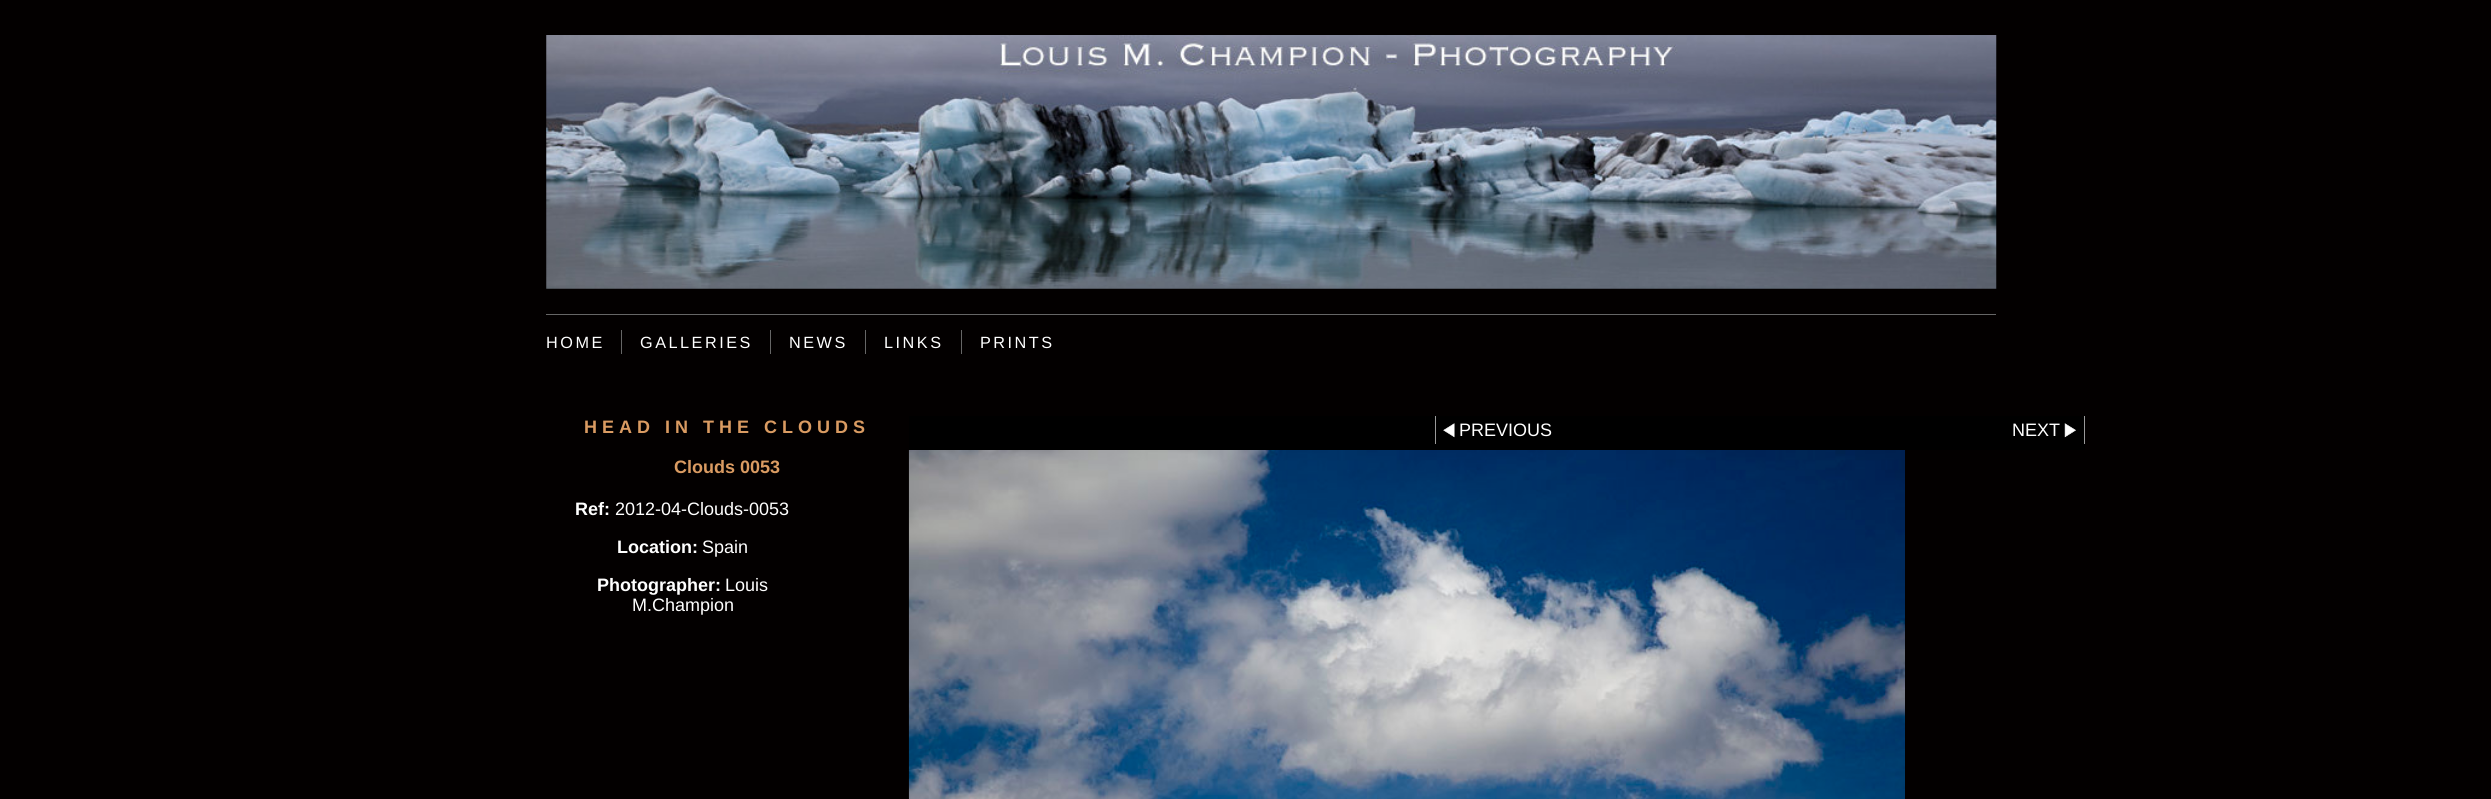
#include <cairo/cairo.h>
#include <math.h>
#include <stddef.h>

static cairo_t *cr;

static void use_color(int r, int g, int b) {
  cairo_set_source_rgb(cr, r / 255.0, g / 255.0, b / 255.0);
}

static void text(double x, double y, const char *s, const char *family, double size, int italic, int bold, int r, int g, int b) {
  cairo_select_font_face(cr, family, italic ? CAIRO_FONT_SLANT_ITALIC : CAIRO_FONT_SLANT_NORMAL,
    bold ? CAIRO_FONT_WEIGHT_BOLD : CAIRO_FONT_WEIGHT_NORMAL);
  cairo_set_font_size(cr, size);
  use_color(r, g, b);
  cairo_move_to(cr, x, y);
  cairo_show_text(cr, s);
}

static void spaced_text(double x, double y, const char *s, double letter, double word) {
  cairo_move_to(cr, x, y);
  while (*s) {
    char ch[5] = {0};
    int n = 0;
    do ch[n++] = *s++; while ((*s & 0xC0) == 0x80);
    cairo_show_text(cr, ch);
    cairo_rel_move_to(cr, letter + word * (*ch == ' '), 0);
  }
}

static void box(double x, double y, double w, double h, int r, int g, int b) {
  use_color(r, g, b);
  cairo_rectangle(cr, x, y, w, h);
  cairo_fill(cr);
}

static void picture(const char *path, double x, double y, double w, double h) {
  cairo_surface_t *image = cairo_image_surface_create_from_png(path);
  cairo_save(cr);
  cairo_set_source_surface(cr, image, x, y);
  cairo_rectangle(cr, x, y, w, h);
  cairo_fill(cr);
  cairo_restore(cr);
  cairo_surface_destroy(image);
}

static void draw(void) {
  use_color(3, 0, 0);
  cairo_paint(cr);
  box(546, 314, 1450, 1, 102, 102, 102);
  picture("img_01.png", 546, 35, 1451, 254);
  box(621, 330, 1, 24, 102, 102, 102);
  box(770, 330, 1, 24, 102, 102, 102);
  box(865, 330, 1, 24, 102, 102, 102);
  box(961, 330, 1, 24, 102, 102, 102);
  box(909, 416, 1176, 34, 0, 0, 0);
  box(1435, 416, 1, 28, 153, 153, 153);
  picture("img_02.png", 1443, 423, 12, 15);
  box(2084, 416, 1, 28, 153, 153, 153);
  picture("img_03.png", 2064, 423, 12, 15);
  picture("img_04.png", 908, 450, 997, 349);
  cairo_select_font_face(cr, "Liberation Sans", CAIRO_FONT_SLANT_NORMAL, CAIRO_FONT_WEIGHT_NORMAL);
  cairo_set_font_size(cr, 16.25);
  use_color(255, 255, 255);
  spaced_text(546, 348, "HOME", 2.5, 0);
  spaced_text(640, 348, "GALLERIES", 2.5, 0);
  spaced_text(789, 348, "NEWS", 2.5, 0);
  spaced_text(884, 348, "LINKS", 2.5, 0);
  spaced_text(980, 348, "PRINTS", 2.5, 0);
  cairo_select_font_face(cr, "Liberation Sans", CAIRO_FONT_SLANT_NORMAL, CAIRO_FONT_WEIGHT_BOLD);
  cairo_set_font_size(cr, 18);
  use_color(218, 155, 98);
  spaced_text(584, 433, "HEAD IN THE CLOUDS", 5, 0);
  text(674, 473, "Clouds 0053", "Liberation Sans", 18, 0, 1, 218, 155, 98);
  text(575, 515, "Ref:", "Liberation Sans", 18, 0, 1, 255, 255, 255);
  text(615, 515, "2012-04-Clouds-0053", "Liberation Sans", 18, 0, 0, 255, 255, 255);
  text(617, 553, "Location:", "Liberation Sans", 18, 0, 1, 255, 255, 255);
  text(702, 553, "Spain", "Liberation Sans", 18, 0, 0, 255, 255, 255);
  text(597, 591, "Photographer:", "Liberation Sans", 18, 0, 1, 255, 255, 255);
  text(725, 591, "Louis", "Liberation Sans", 18, 0, 0, 255, 255, 255);
  text(632, 611, "M.Champion", "Liberation Sans", 18, 0, 0, 255, 255, 255);
  text(1459, 436, "PREVIOUS", "Liberation Sans", 18, 0, 0, 255, 255, 255);
  text(2012, 436, "NEXT", "Liberation Sans", 18, 0, 0, 255, 255, 255);
}

int main(void) {
  cairo_surface_t *surface = cairo_image_surface_create(CAIRO_FORMAT_RGB24, 2491, 799);
  cr = cairo_create(surface);
  cairo_font_options_t *options = cairo_font_options_create();
  cairo_font_options_set_hint_metrics(options, CAIRO_HINT_METRICS_OFF);
  cairo_font_options_set_hint_style(options, CAIRO_HINT_STYLE_NONE);
  cairo_set_font_options(cr, options);
  cairo_set_miter_limit(cr, 4);
  draw();
  cairo_surface_write_to_png(surface, "out.png");
  cairo_font_options_destroy(options);
  cairo_destroy(cr);
  cairo_surface_destroy(surface);
  return 0;
}
